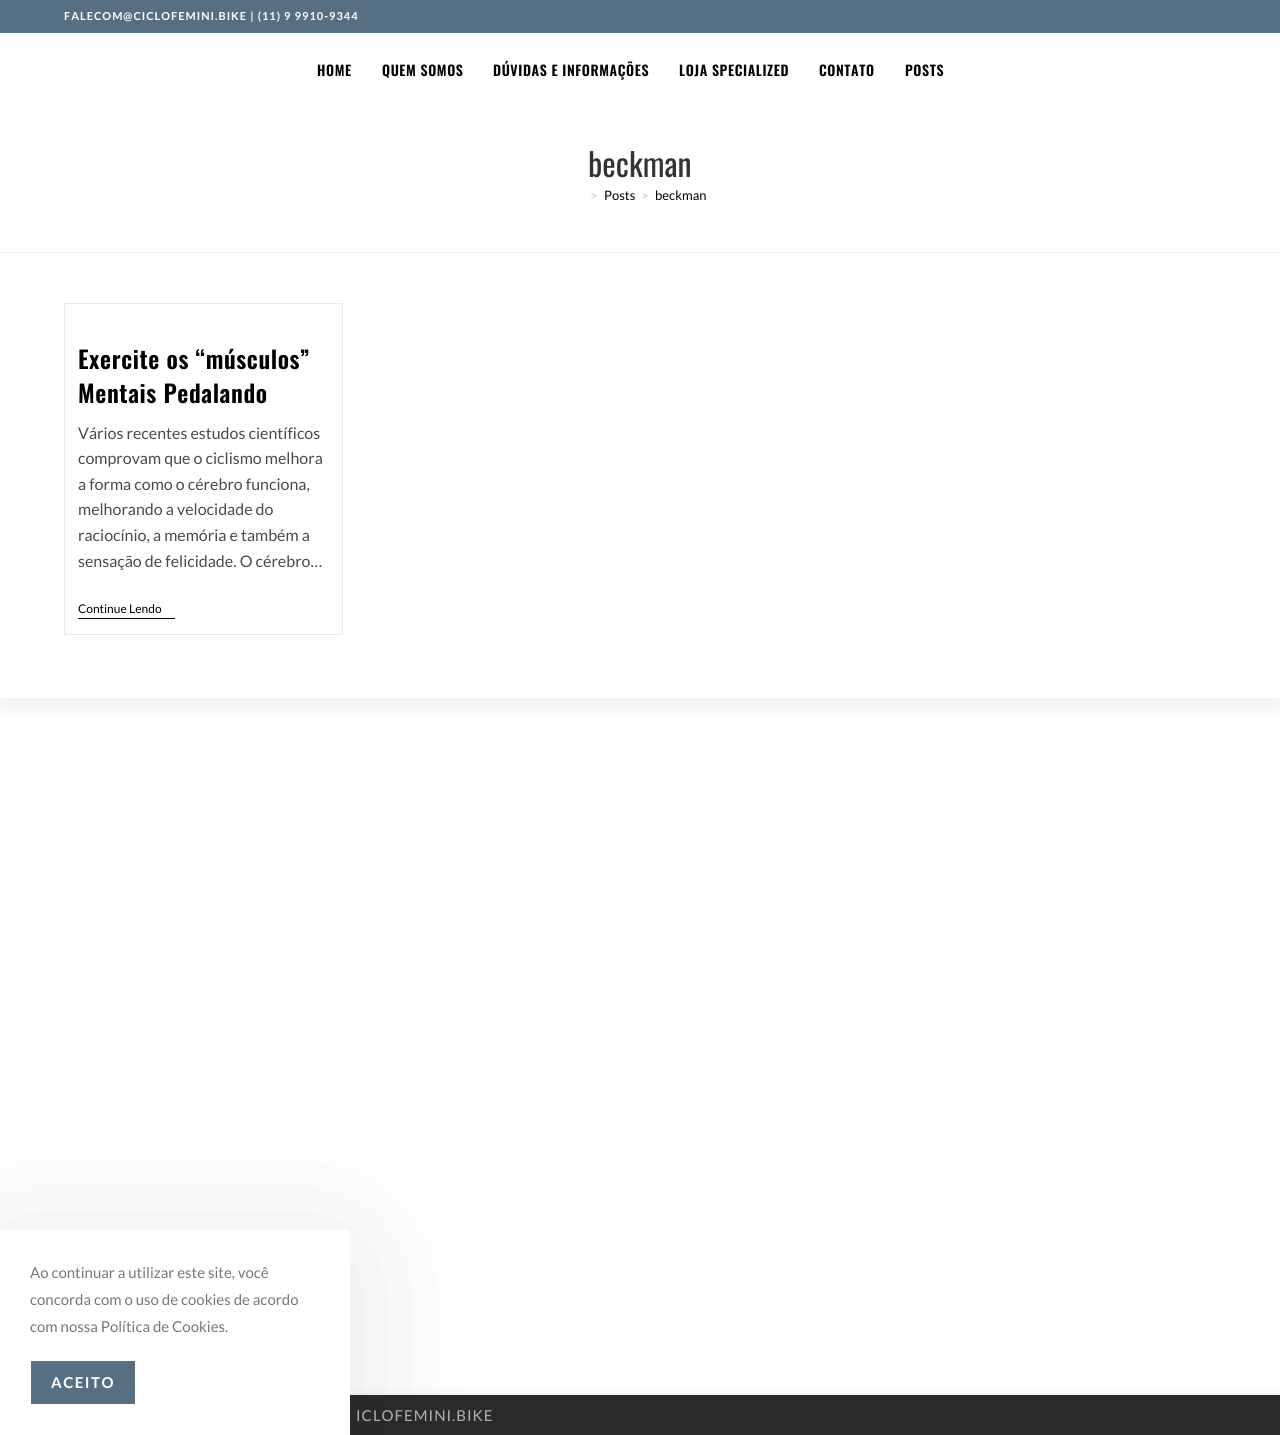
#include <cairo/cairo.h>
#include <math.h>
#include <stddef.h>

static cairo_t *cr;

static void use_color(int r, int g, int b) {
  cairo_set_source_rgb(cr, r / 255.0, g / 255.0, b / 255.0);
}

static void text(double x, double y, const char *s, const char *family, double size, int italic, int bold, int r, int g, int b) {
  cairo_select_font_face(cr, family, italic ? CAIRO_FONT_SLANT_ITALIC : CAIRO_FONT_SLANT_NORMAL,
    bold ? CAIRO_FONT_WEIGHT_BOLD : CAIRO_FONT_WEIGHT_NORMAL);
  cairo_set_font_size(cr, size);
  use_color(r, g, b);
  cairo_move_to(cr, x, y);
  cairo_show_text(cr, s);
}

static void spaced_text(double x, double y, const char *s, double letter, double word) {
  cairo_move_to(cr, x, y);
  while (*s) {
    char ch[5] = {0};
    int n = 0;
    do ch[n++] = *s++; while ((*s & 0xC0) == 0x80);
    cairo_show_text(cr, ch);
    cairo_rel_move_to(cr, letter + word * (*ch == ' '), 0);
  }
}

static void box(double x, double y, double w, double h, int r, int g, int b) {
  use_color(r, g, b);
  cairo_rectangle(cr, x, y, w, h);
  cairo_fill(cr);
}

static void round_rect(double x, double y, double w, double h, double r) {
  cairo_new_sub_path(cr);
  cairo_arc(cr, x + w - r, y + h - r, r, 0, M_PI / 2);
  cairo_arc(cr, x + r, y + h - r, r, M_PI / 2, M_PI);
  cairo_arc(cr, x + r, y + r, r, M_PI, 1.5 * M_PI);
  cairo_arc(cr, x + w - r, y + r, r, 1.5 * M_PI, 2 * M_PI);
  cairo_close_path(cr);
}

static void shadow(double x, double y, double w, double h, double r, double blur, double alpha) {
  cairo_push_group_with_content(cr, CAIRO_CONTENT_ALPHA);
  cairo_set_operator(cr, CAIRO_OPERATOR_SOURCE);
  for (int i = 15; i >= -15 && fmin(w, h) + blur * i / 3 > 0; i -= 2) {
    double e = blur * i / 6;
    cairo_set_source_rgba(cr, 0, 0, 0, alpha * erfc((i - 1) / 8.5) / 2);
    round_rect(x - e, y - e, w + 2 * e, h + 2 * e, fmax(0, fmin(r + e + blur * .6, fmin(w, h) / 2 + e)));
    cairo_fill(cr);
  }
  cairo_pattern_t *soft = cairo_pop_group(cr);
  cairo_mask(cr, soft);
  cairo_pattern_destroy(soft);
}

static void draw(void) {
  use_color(255, 255, 255);
  cairo_paint(cr);
  box(0, 0, 1280, 33, 86, 111, 131);
  cairo_save(cr);
  cairo_rectangle(cr, 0, 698, 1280, 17);
  cairo_clip(cr);
  use_color(0, 0, 0);
  shadow(0, 107, 1280, 591, 0, 20, 0.1);
  cairo_restore(cr);
  box(0, 81, 1280, 26, 255, 255, 255);
  box(0, 252, 1280, 1, 241, 241, 241);
  cairo_rectangle(cr, 64.5, 303.5, 278, 331);
  use_color(233, 233, 233);
  cairo_set_line_width(cr, 1);
  cairo_stroke(cr);
  box(78, 618, 97, 1, 0, 0, 0);
  use_color(26, 26, 26);
  shadow(0, 1395, 1280, 40, 0, 4, 0.1);
  box(350, 1395, 930, 40, 43, 43, 43);
  use_color(0, 0, 0);
  shadow(0, 1249, 350, 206, 4, 75, 0.1);
  use_color(255, 255, 255);
  cairo_new_path(cr);
  cairo_move_to(cr, 0, 1229);
  cairo_line_to(cr, 346, 1229);
  cairo_curve_to(cr, 348, 1229, 350, 1231, 350, 1233);
  cairo_line_to(cr, 350, 1435);
  cairo_line_to(cr, 0, 1435);
  cairo_close_path(cr);
  cairo_fill(cr);
  box(31, 1361, 104, 43, 86, 111, 131);
  cairo_select_font_face(cr, "Lato", CAIRO_FONT_SLANT_NORMAL, CAIRO_FONT_WEIGHT_BOLD);
  cairo_set_font_size(cr, 11);
  use_color(255, 255, 255);
  spaced_text(64, 20, "FALECOM@CICLOFEMINI.BIKE | (11) 9 9910-9344", 1, 0);
  cairo_select_font_face(cr, "Oswald SemiBold", CAIRO_FONT_SLANT_NORMAL, CAIRO_FONT_WEIGHT_NORMAL);
  cairo_set_font_size(cr, 14);
  use_color(0, 0, 0);
  spaced_text(317, 76, "HOME", 0.6, 0);
  spaced_text(382, 76, "QUEM SOMOS", 0.6, 0);
  spaced_text(493, 76, "DÚVIDAS E INFORMAÇÕES", 0.6, 0);
  spaced_text(679, 76, "LOJA SPECIALIZED", 0.6, 0);
  spaced_text(819, 76, "CONTATO", 0.6, 0);
  spaced_text(905, 76, "POSTS", 0.6, 0);
  text(588, 177, "beckman", "Oswald", 32, 0, 0, 51, 51, 51);
  text(590, 200, ">", "Lato", 13, 0, 0, 198, 198, 198);
  text(604, 200, "Posts", "Lato", 13, 0, 0, 0, 0, 0);
  text(641, 200, ">", "Lato", 13, 0, 0, 198, 198, 198);
  text(655, 200, "beckman", "Lato", 13, 0, 0, 0, 0, 0);
  cairo_select_font_face(cr, "Oswald SemiBold", CAIRO_FONT_SLANT_NORMAL, CAIRO_FONT_WEIGHT_NORMAL);
  cairo_set_font_size(cr, 24);
  spaced_text(78, 369, "Exercite os “músculos”", 0.6, 0);
  spaced_text(78, 403, "Mentais Pedalando", 0.6, 0);
  text(78, 439, "Vários recentes estudos científicos", "Lato", 16, 0, 0, 74, 74, 74);
  text(78, 464, "comprovam que o ciclismo melhora", "Lato", 16, 0, 0, 74, 74, 74);
  text(78, 490, "a forma como o cérebro funciona,", "Lato", 16, 0, 0, 74, 74, 74);
  text(78, 515, "melhorando a velocidade do", "Lato", 16, 0, 0, 74, 74, 74);
  text(78, 541, "raciocínio, a memória e também a", "Lato", 16, 0, 0, 74, 74, 74);
  text(78, 567, "sensação de felicidade. O cérebro…", "Lato", 16, 0, 0, 74, 74, 74);
  text(78, 613, "Continue Lendo", "Lato", 12, 0, 0, 0, 0, 0);
  cairo_set_font_size(cr, 15);
  use_color(178, 178, 178);
  spaced_text(356, 1421, "ICLOFEMINI.BIKE", 1, 0);
  text(30, 1278, "Ao continuar a utilizar este site, você", "Lato", 15, 0, 0, 119, 119, 119);
  text(30, 1305, "concorda com o uso de cookies de acordo", "Lato", 15, 0, 0, 119, 119, 119);
  text(30, 1332, "com nossa Política de Cookies.", "Lato", 15, 0, 0, 119, 119, 119);
  cairo_select_font_face(cr, "Lato", CAIRO_FONT_SLANT_NORMAL, CAIRO_FONT_WEIGHT_BOLD);
  use_color(255, 255, 255);
  spaced_text(51, 1388, "ACEITO", 1.5, 0);
}

int main(void) {
  cairo_surface_t *surface = cairo_image_surface_create(CAIRO_FORMAT_RGB24, 1280, 1435);
  cr = cairo_create(surface);
  cairo_font_options_t *options = cairo_font_options_create();
  cairo_font_options_set_hint_metrics(options, CAIRO_HINT_METRICS_OFF);
  cairo_font_options_set_hint_style(options, CAIRO_HINT_STYLE_NONE);
  cairo_set_font_options(cr, options);
  cairo_set_miter_limit(cr, 4);
  draw();
  cairo_surface_write_to_png(surface, "out.png");
  cairo_font_options_destroy(options);
  cairo_destroy(cr);
  cairo_surface_destroy(surface);
  return 0;
}
